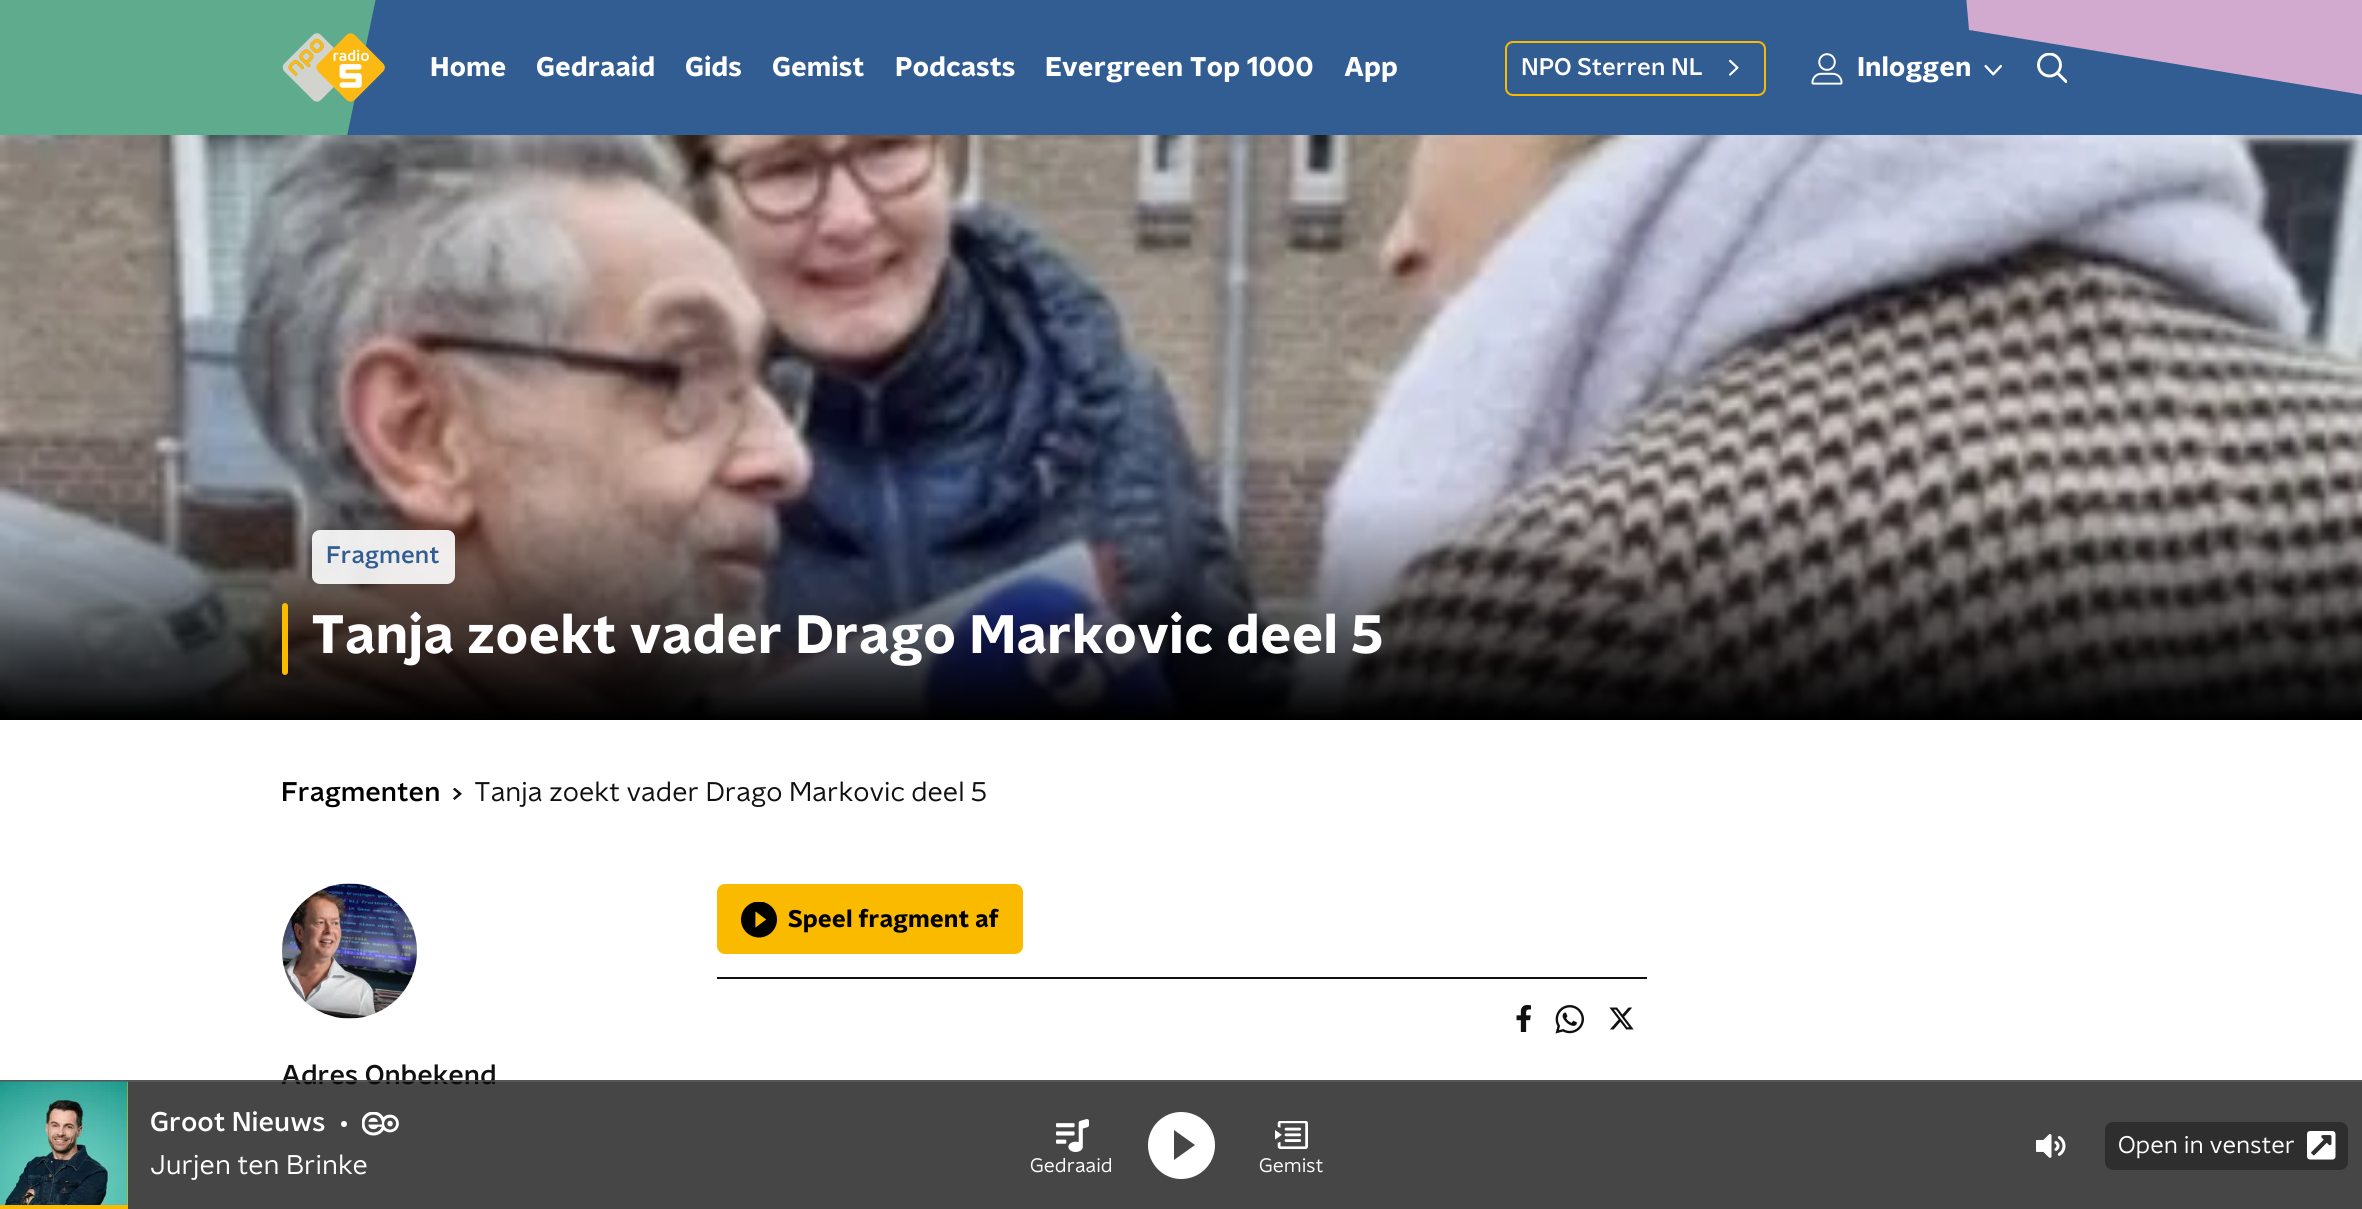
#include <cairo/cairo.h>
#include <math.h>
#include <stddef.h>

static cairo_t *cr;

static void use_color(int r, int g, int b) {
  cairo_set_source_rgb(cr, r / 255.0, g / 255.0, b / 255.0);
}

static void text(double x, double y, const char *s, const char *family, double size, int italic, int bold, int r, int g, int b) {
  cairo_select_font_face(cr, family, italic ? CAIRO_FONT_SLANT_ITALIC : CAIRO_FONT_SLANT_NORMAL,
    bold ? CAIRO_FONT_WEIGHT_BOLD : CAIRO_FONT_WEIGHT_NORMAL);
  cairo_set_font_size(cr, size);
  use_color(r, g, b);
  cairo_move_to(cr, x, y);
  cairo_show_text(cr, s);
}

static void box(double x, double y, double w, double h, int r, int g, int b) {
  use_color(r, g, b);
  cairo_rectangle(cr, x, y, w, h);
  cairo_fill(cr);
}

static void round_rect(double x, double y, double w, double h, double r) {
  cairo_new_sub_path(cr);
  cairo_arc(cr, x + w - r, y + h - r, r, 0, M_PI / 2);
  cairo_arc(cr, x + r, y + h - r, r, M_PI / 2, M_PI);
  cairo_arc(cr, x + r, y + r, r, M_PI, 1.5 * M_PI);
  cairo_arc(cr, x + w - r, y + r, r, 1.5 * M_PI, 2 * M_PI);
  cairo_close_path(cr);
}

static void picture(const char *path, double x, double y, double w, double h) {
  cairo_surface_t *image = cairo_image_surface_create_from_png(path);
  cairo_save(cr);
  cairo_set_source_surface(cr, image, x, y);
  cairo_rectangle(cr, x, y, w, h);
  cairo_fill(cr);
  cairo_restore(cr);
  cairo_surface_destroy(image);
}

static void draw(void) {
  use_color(255, 255, 255);
  cairo_paint(cr);
  box(347, 0, 2015, 135, 50, 93, 146);
  cairo_save(cr);
  cairo_rectangle(cr, 0, 0, 402, 135);
  cairo_clip(cr);
  use_color(94, 171, 141);
  cairo_new_path(cr);
  cairo_move_to(cr, 402, -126);
  cairo_line_to(cr, 63, 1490);
  cairo_line_to(cr, -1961, 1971);
  cairo_line_to(cr, -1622, 355);
  cairo_close_path(cr);
  cairo_fill(cr);
  cairo_restore(cr);
  use_color(210, 170, 208);
  cairo_new_path(cr);
  cairo_move_to(cr, 1969, 30);
  cairo_line_to(cr, 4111, 383);
  cairo_line_to(cr, 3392, -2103);
  cairo_line_to(cr, 1748, -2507);
  cairo_close_path(cr);
  cairo_fill(cr);
  picture("img_01.png", 282, 33, 103, 69);
  round_rect(1506, 42, 259, 53, 7);
  use_color(250, 186, 0);
  cairo_stroke(cr);
  picture("img_02.png", 1728, 59, 11, 17);
  picture("img_03.png", 1811, 53, 32, 32);
  picture("img_04.png", 1984, 64, 18, 12);
  cairo_save(cr);
  cairo_rectangle(cr, 2037, 53, 30, 30);
  cairo_clip(cr);
  cairo_arc(cr, 2049.5, 65, 11, 0, 2 * M_PI);
  use_color(255, 255, 255);
  cairo_set_line_width(cr, 2.9);
  cairo_stroke(cr);
  cairo_new_path(cr);
  cairo_move_to(cr, 2057.5, 73);
  cairo_line_to(cr, 2066, 81.5);
  cairo_set_line_cap(cr, CAIRO_LINE_CAP_SQUARE);
  cairo_stroke(cr);
  cairo_restore(cr);
  picture("img_05.png", 0, 135, 2362, 585);
  cairo_set_source_rgba(cr, 1, 1, 1, 0.9);
  round_rect(312, 530, 143, 54, 8);
  cairo_fill(cr);
  use_color(250, 186, 0);
  round_rect(282, 603, 6, 72, 3);
  cairo_fill(cr);
  picture("img_06.png", 453, 788, 9, 12);
  round_rect(717, 884, 306, 70, 8);
  cairo_fill(cr);
  picture("img_07.png", 741, 902, 36, 36);
  box(717, 977, 930, 2, 16, 16, 16);
  picture("img_08.png", 1516, 1005, 15, 27);
  picture("img_09.png", 1555, 1005, 29, 29);
  picture("img_10.png", 1609, 1007, 25, 23);
  picture("img_11.png", 282, 883, 135, 136);
  text(430, 76, "Home", "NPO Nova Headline", 27, 0, 1, 255, 255, 255);
  text(536, 76, "Gedraaid", "NPO Nova Headline", 27, 0, 1, 255, 255, 255);
  text(685, 76, "Gids", "NPO Nova Headline", 27, 0, 1, 255, 255, 255);
  text(772, 76, "Gemist", "NPO Nova Headline", 27, 0, 1, 255, 255, 255);
  text(895, 76, "Podcasts", "NPO Nova Headline", 27, 0, 1, 255, 255, 255);
  text(1045, 76, "Evergreen Top 1000", "NPO Nova Headline", 27, 0, 1, 255, 255, 255);
  text(1344, 76, "App", "NPO Nova Headline", 27, 0, 1, 255, 255, 255);
  text(1521, 75, "NPO Sterren NL", "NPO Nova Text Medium", 24, 0, 0, 255, 255, 255);
  text(1857, 76, "Inloggen", "NPO Nova Headline", 27, 0, 1, 255, 255, 255);
  text(326, 563, "Fragment", "NPO Nova Text Medium", 24, 0, 0, 50, 93, 146);
  text(311, 653, "Tanja zoekt vader Drago Markovic deel 5", "NPO Nova Headline", 54, 0, 1, 255, 255, 255);
  text(281, 801, "Fragmenten", "NPO Nova Text Medium", 27, 0, 0, 0, 0, 0);
  text(474, 801, "Tanja zoekt vader Drago Markovic deel 5", "NPO Nova Text", 27, 0, 0, 16, 16, 16);
  text(788, 927, "Speel fragment af", "NPO Nova Headline", 24, 0, 1, 0, 0, 0);
  text(281, 1084, "Adres Onbekend", "NPO Nova Text Medium", 27, 0, 0, 16, 16, 16);
  cairo_set_source_rgba(cr, 0.035, 0.035, 0.035, 0.75);
  cairo_rectangle(cr, 0, 1080, 2362, 129);
  cairo_fill(cr);
  cairo_set_source_rgba(cr, 0.373, 0.373, 0.373, 0.65);
  cairo_rectangle(cr, 0, 1080, 2362, 2);
  cairo_fill(cr);
  box(127, 1082, 1, 123, 250, 186, 0);
  picture("img_12.png", 0, 1081, 128, 124);
  box(0, 1205, 128, 4, 250, 186, 0);
  text(150, 1131, "Groot Nieuws", "NPO Nova Text Medium", 27, 0, 0, 255, 255, 255);
  cairo_new_path(cr);
  cairo_arc(cr, 344, 1124, 3, 0, 2 * M_PI);
  cairo_fill(cr);
  picture("img_13.png", 362, 1112, 37, 24);
  text(150, 1174, "Jurjen ten Brinke", "NPO Nova Text", 27, 0, 0, 255, 255, 255);
  picture("img_14.png", 2036, 1134, 30, 24);
  use_color(46, 46, 46);
  round_rect(2105, 1122, 243, 48, 8);
  cairo_fill(cr);
  text(2118, 1153, "Open in venster", "NPO Nova Text", 24, 0, 0, 255, 255, 255);
  picture("img_15.png", 2307, 1131, 29, 29);
  picture("img_16.png", 1056, 1119, 33, 33);
  text(1030, 1172, "Gedraaid", "NPO Nova Text", 19.5, 0, 0, 255, 255, 255);
  cairo_new_path(cr);
  cairo_move_to(cr, 1181, 1112);
  cairo_curve_to(cr, 1163, 1112, 1148, 1127, 1148, 1145);
  cairo_curve_to(cr, 1148, 1164, 1163, 1179, 1181, 1179);
  cairo_curve_to(cr, 1200, 1179, 1215, 1164, 1215, 1145);
  cairo_curve_to(cr, 1215, 1127, 1200, 1112, 1181, 1112);
  cairo_close_path(cr);
  cairo_move_to(cr, 1174, 1160);
  cairo_line_to(cr, 1174, 1130);
  cairo_line_to(cr, 1195, 1145);
  cairo_close_path(cr);
  cairo_fill(cr);
  picture("img_17.png", 1275, 1121, 33, 28);
  text(1259, 1172, "Gemist", "NPO Nova Text", 19.5, 0, 0, 255, 255, 255);
}

int main(void) {
  cairo_surface_t *surface = cairo_image_surface_create(CAIRO_FORMAT_RGB24, 2362, 1209);
  cr = cairo_create(surface);
  cairo_font_options_t *options = cairo_font_options_create();
  cairo_font_options_set_hint_metrics(options, CAIRO_HINT_METRICS_OFF);
  cairo_font_options_set_hint_style(options, CAIRO_HINT_STYLE_NONE);
  cairo_set_font_options(cr, options);
  cairo_set_miter_limit(cr, 4);
  draw();
  cairo_surface_write_to_png(surface, "out.png");
  cairo_font_options_destroy(options);
  cairo_destroy(cr);
  cairo_surface_destroy(surface);
  return 0;
}
